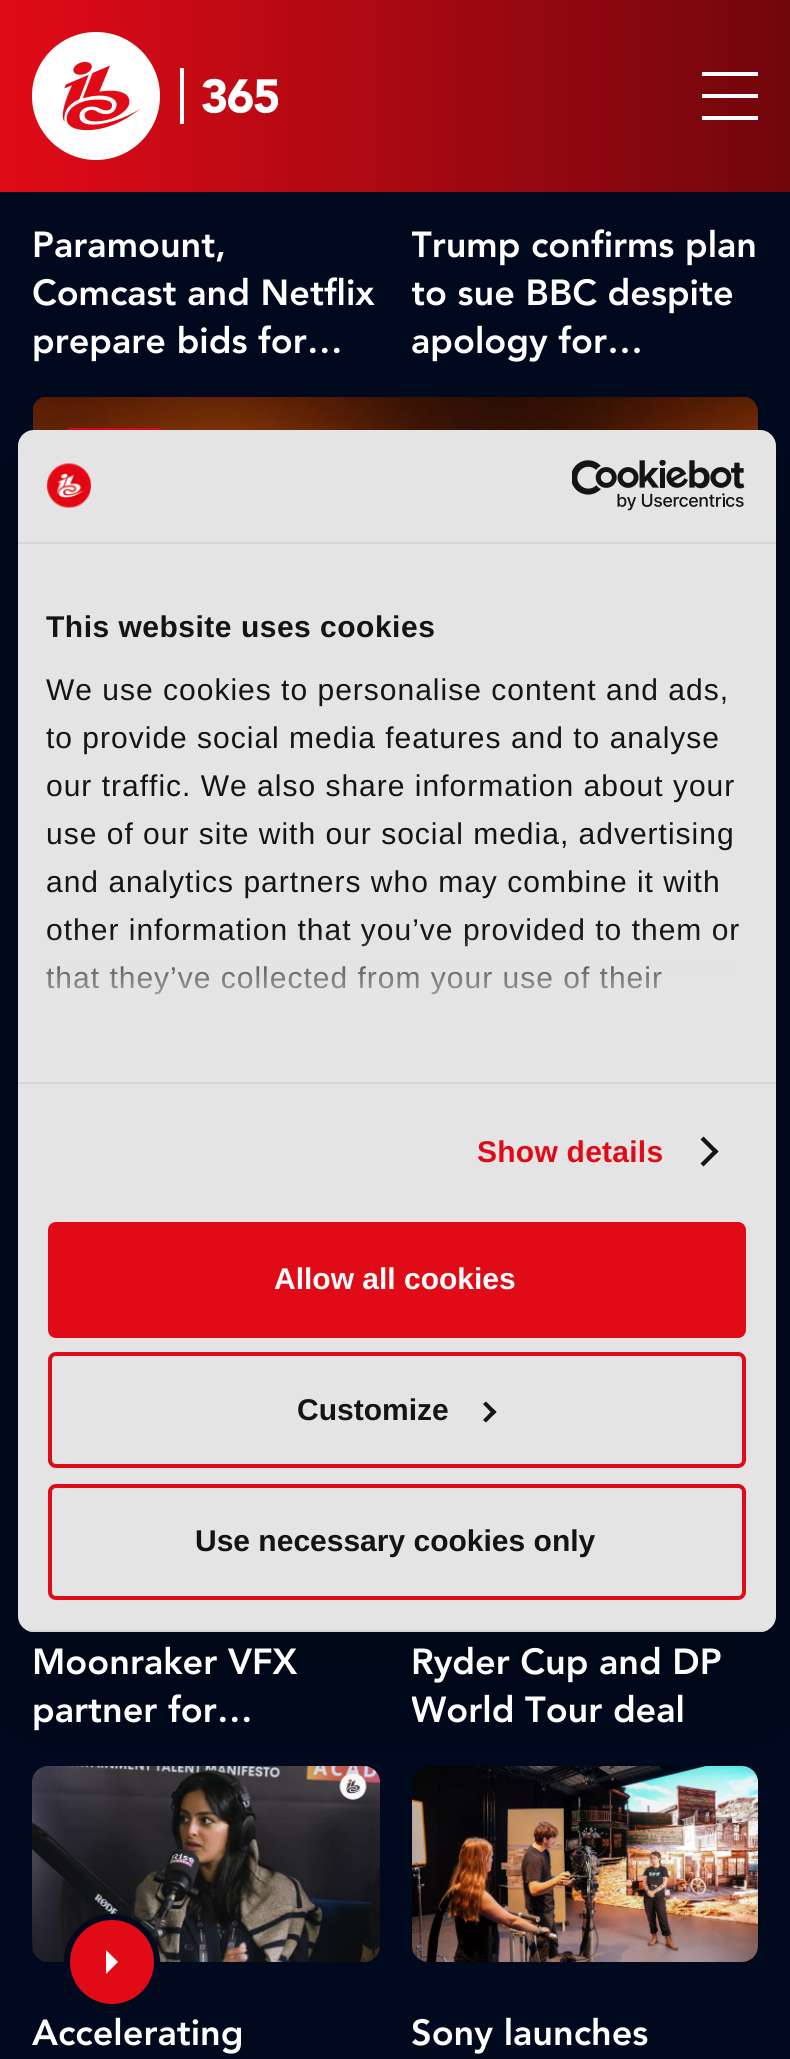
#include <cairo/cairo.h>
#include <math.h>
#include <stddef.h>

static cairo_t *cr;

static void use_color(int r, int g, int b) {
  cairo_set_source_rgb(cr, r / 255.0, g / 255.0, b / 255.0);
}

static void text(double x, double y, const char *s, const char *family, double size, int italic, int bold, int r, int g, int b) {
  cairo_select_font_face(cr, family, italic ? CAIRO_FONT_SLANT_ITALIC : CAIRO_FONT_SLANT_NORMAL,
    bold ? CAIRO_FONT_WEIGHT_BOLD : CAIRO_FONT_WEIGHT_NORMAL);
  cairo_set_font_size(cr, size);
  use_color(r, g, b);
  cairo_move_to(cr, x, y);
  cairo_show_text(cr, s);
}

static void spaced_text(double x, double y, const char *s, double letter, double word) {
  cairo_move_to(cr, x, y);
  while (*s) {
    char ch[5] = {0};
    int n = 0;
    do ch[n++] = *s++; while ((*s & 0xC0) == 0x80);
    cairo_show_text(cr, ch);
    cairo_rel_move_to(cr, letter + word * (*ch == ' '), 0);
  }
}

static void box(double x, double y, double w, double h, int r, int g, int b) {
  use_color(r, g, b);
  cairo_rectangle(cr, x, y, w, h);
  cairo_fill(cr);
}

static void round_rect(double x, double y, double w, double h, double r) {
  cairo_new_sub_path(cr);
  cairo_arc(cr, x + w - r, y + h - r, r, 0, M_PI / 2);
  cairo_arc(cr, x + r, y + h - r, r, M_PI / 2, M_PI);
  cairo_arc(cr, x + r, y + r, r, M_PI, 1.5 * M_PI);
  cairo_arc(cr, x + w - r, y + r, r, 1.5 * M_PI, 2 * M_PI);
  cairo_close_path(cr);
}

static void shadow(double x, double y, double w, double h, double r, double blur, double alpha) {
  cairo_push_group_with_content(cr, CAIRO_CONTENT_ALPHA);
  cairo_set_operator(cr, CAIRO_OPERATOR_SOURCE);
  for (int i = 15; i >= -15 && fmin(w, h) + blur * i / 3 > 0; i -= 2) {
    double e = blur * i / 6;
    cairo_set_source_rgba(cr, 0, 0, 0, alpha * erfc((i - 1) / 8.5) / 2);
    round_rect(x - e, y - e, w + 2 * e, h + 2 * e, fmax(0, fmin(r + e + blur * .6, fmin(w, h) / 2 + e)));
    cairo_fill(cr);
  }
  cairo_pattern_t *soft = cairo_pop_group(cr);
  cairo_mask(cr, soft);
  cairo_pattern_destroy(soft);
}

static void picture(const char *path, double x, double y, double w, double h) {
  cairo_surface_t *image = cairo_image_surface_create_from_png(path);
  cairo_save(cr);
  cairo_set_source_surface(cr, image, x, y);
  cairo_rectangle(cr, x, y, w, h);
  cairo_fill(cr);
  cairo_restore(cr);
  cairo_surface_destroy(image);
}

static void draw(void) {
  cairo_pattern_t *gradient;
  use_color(0, 9, 30);
  cairo_paint(cr);
  gradient = cairo_pattern_create_linear(790, 96, 0, 96);
  cairo_pattern_add_color_stop_rgba(gradient, 0, 0.443, 0.024, 0.047, 1);
  cairo_pattern_add_color_stop_rgba(gradient, 1, 0.882, 0.043, 0.09, 1);
  cairo_set_source(cr, gradient);
  cairo_pattern_destroy(gradient);
  cairo_rectangle(cr, 0, 0, 790, 192);
  cairo_fill(cr);
  picture("img_01.png", 32, 32, 246, 128);
  box(702, 94, 56, 4, 255, 255, 255);
  box(702, 72, 56, 4, 255, 255, 255);
  box(702, 116, 56, 4, 255, 255, 255);
  picture("img_02.png", 33, 397, 725, 34);
  use_color(225, 11, 23);
  round_rect(64, 428, 102, 56, 8);
  cairo_fill(cr);
  picture("img_03.png", 32, 1766, 348, 196);
  cairo_arc(cr, 112, 1962, 45, 0, 2 * M_PI);
  cairo_fill_preserve(cr);
  use_color(0, 9, 30);
  cairo_set_line_width(cr, 6);
  cairo_stroke(cr);
  use_color(255, 255, 255);
  cairo_new_path(cr);
  cairo_move_to(cr, 106, 1974);
  cairo_line_to(cr, 106, 1950);
  cairo_line_to(cr, 118, 1962);
  cairo_close_path(cr);
  cairo_fill(cr);
  picture("img_04.png", 412, 1766, 346, 196);
  use_color(0, 0, 0);
  shadow(18, 494, 758, 1202, 16, 68, 0.3);
  use_color(228, 228, 228);
  round_rect(18, 430, 758, 1202, 16);
  cairo_fill(cr);
  box(18, 542, 758, 2, 214, 214, 214);
  picture("img_05.png", 46, 463, 45, 45);
  picture("img_06.png", 572, 460, 173, 51);
  box(18, 1082, 758, 2, 214, 214, 214);
  use_color(20, 20, 20);
  cairo_new_path(cr);
  cairo_move_to(cr, 703.5, 1136.5);
  cairo_line_to(cr, 718.5, 1151.5);
  cairo_line_to(cr, 715.5, 1154.5);
  cairo_line_to(cr, 700.5, 1139.5);
  cairo_close_path(cr);
  cairo_fill(cr);
  cairo_new_path(cr);
  cairo_move_to(cr, 715.5, 1148.5);
  cairo_line_to(cr, 718.5, 1151.5);
  cairo_line_to(cr, 703.5, 1166.5);
  cairo_line_to(cr, 700.5, 1163.5);
  cairo_close_path(cr);
  cairo_fill(cr);
  cairo_save(cr);
  round_rect(18, 430, 758, 1202, 16);
  cairo_clip(cr);
  box(18, 1630, 758, 2, 214, 214, 214);
  cairo_restore(cr);
  use_color(225, 11, 23);
  round_rect(50, 1224, 694, 112, 6);
  cairo_fill_preserve(cr);
  cairo_set_line_width(cr, 4);
  cairo_stroke(cr);
  round_rect(50, 1354, 694, 112, 6);
  cairo_stroke(cr);
  use_color(20, 20, 20);
  cairo_new_path(cr);
  cairo_move_to(cr, 486, 1401.5);
  cairo_line_to(cr, 496.5, 1412);
  cairo_line_to(cr, 493.5, 1415);
  cairo_line_to(cr, 483, 1404);
  cairo_close_path(cr);
  cairo_fill(cr);
  cairo_new_path(cr);
  cairo_move_to(cr, 493.5, 1409);
  cairo_line_to(cr, 496.5, 1412);
  cairo_line_to(cr, 486, 1422.5);
  cairo_line_to(cr, 483, 1420);
  cairo_close_path(cr);
  cairo_fill(cr);
  round_rect(50, 1486, 694, 112, 6);
  use_color(225, 11, 23);
  cairo_stroke(cr);
  text(32, 257, "Paramount,", "Avenir Black", 36, 0, 0, 255, 255, 255);
  text(32, 305, "Comcast and Netflix", "Avenir Black", 36, 0, 0, 255, 255, 255);
  text(32, 353, "prepare bids for…", "Avenir Black", 36, 0, 0, 255, 255, 255);
  cairo_save(cr);
  cairo_rectangle(cr, 412, 172, 346, 192);
  cairo_clip(cr);
  text(411, 257, "Trump confirms plan", "Avenir Black", 36, 0, 0, 255, 255, 255);
  text(411, 305, "to sue BBC despite", "Avenir Black", 36, 0, 0, 255, 255, 255);
  cairo_restore(cr);
  text(411, 353, "apology for…", "Avenir Black", 36, 0, 0, 255, 255, 255);
  text(32, 1674, "Moonraker VFX", "Avenir Black", 36, 0, 0, 255, 255, 255);
  text(32, 1722, "partner for…", "Avenir Black", 36, 0, 0, 255, 255, 255);
  text(411, 1674, "Ryder Cup and DP", "Avenir Black", 36, 0, 0, 255, 255, 255);
  cairo_save(cr);
  cairo_rectangle(cr, 412, 1542, 346, 192);
  cairo_clip(cr);
  text(411, 1722, "World Tour deal", "Avenir Black", 36, 0, 0, 255, 255, 255);
  cairo_restore(cr);
  text(32, 2045, "Accelerating", "Avenir Black", 36, 0, 0, 255, 255, 255);
  text(411, 2045, "Sony launches", "Avenir Black", 36, 0, 0, 255, 255, 255);
  cairo_select_font_face(cr, "Liberation Sans", CAIRO_FONT_SLANT_NORMAL, CAIRO_FONT_WEIGHT_BOLD);
  cairo_set_font_size(cr, 30);
  use_color(20, 20, 20);
  spaced_text(46, 637, "This website uses cookies", 0.5, 0);
  cairo_select_font_face(cr, "Liberation Sans", CAIRO_FONT_SLANT_NORMAL, CAIRO_FONT_WEIGHT_NORMAL);
  spaced_text(46, 700, "We use cookies to personalise content and ads,", 1, 0);
  spaced_text(46, 748, "to provide social media features and to analyse", 1, 0);
  spaced_text(46, 796, "our traffic. We also share information about your", 1, 0);
  spaced_text(46, 844, "use of our site with our social media, advertising", 1, 0);
  spaced_text(46, 892, "and analytics partners who may combine it with", 1, 0);
  spaced_text(46, 940, "other information that you’ve provided to them or", 1, 0);
  spaced_text(46, 988, "that they’ve collected from your use of their", 1, 0);
  gradient = cairo_pattern_create_linear(383, 1082, 383, 932);
  cairo_pattern_add_color_stop_rgba(gradient, 0, 0.894, 0.894, 0.894, 1);
  cairo_pattern_add_color_stop_rgba(gradient, 0.5, 0.894, 0.894, 0.894, 0.8);
  cairo_pattern_add_color_stop_rgba(gradient, 1, 0.894, 0.894, 0.894, 0);
  cairo_set_source(cr, gradient);
  cairo_pattern_destroy(gradient);
  cairo_rectangle(cr, 46, 934, 688, 61);
  cairo_fill(cr);
  cairo_select_font_face(cr, "Liberation Sans", CAIRO_FONT_SLANT_NORMAL, CAIRO_FONT_WEIGHT_BOLD);
  use_color(225, 11, 23);
  spaced_text(477, 1162, "Show details", 0.25, 0);
  text(274, 1289, "Allow all cookies", "Liberation Sans", 30, 0, 1, 255, 255, 255);
  text(297, 1420, "Customize", "Liberation Sans", 30, 0, 1, 20, 20, 20);
  text(195, 1551, "Use necessary cookies only", "Liberation Sans", 30, 0, 1, 20, 20, 20);
}

int main(void) {
  cairo_surface_t *surface = cairo_image_surface_create(CAIRO_FORMAT_RGB24, 790, 2059);
  cr = cairo_create(surface);
  cairo_font_options_t *options = cairo_font_options_create();
  cairo_font_options_set_hint_metrics(options, CAIRO_HINT_METRICS_OFF);
  cairo_font_options_set_hint_style(options, CAIRO_HINT_STYLE_NONE);
  cairo_set_font_options(cr, options);
  cairo_set_miter_limit(cr, 4);
  draw();
  cairo_surface_write_to_png(surface, "out.png");
  cairo_font_options_destroy(options);
  cairo_destroy(cr);
  cairo_surface_destroy(surface);
  return 0;
}
